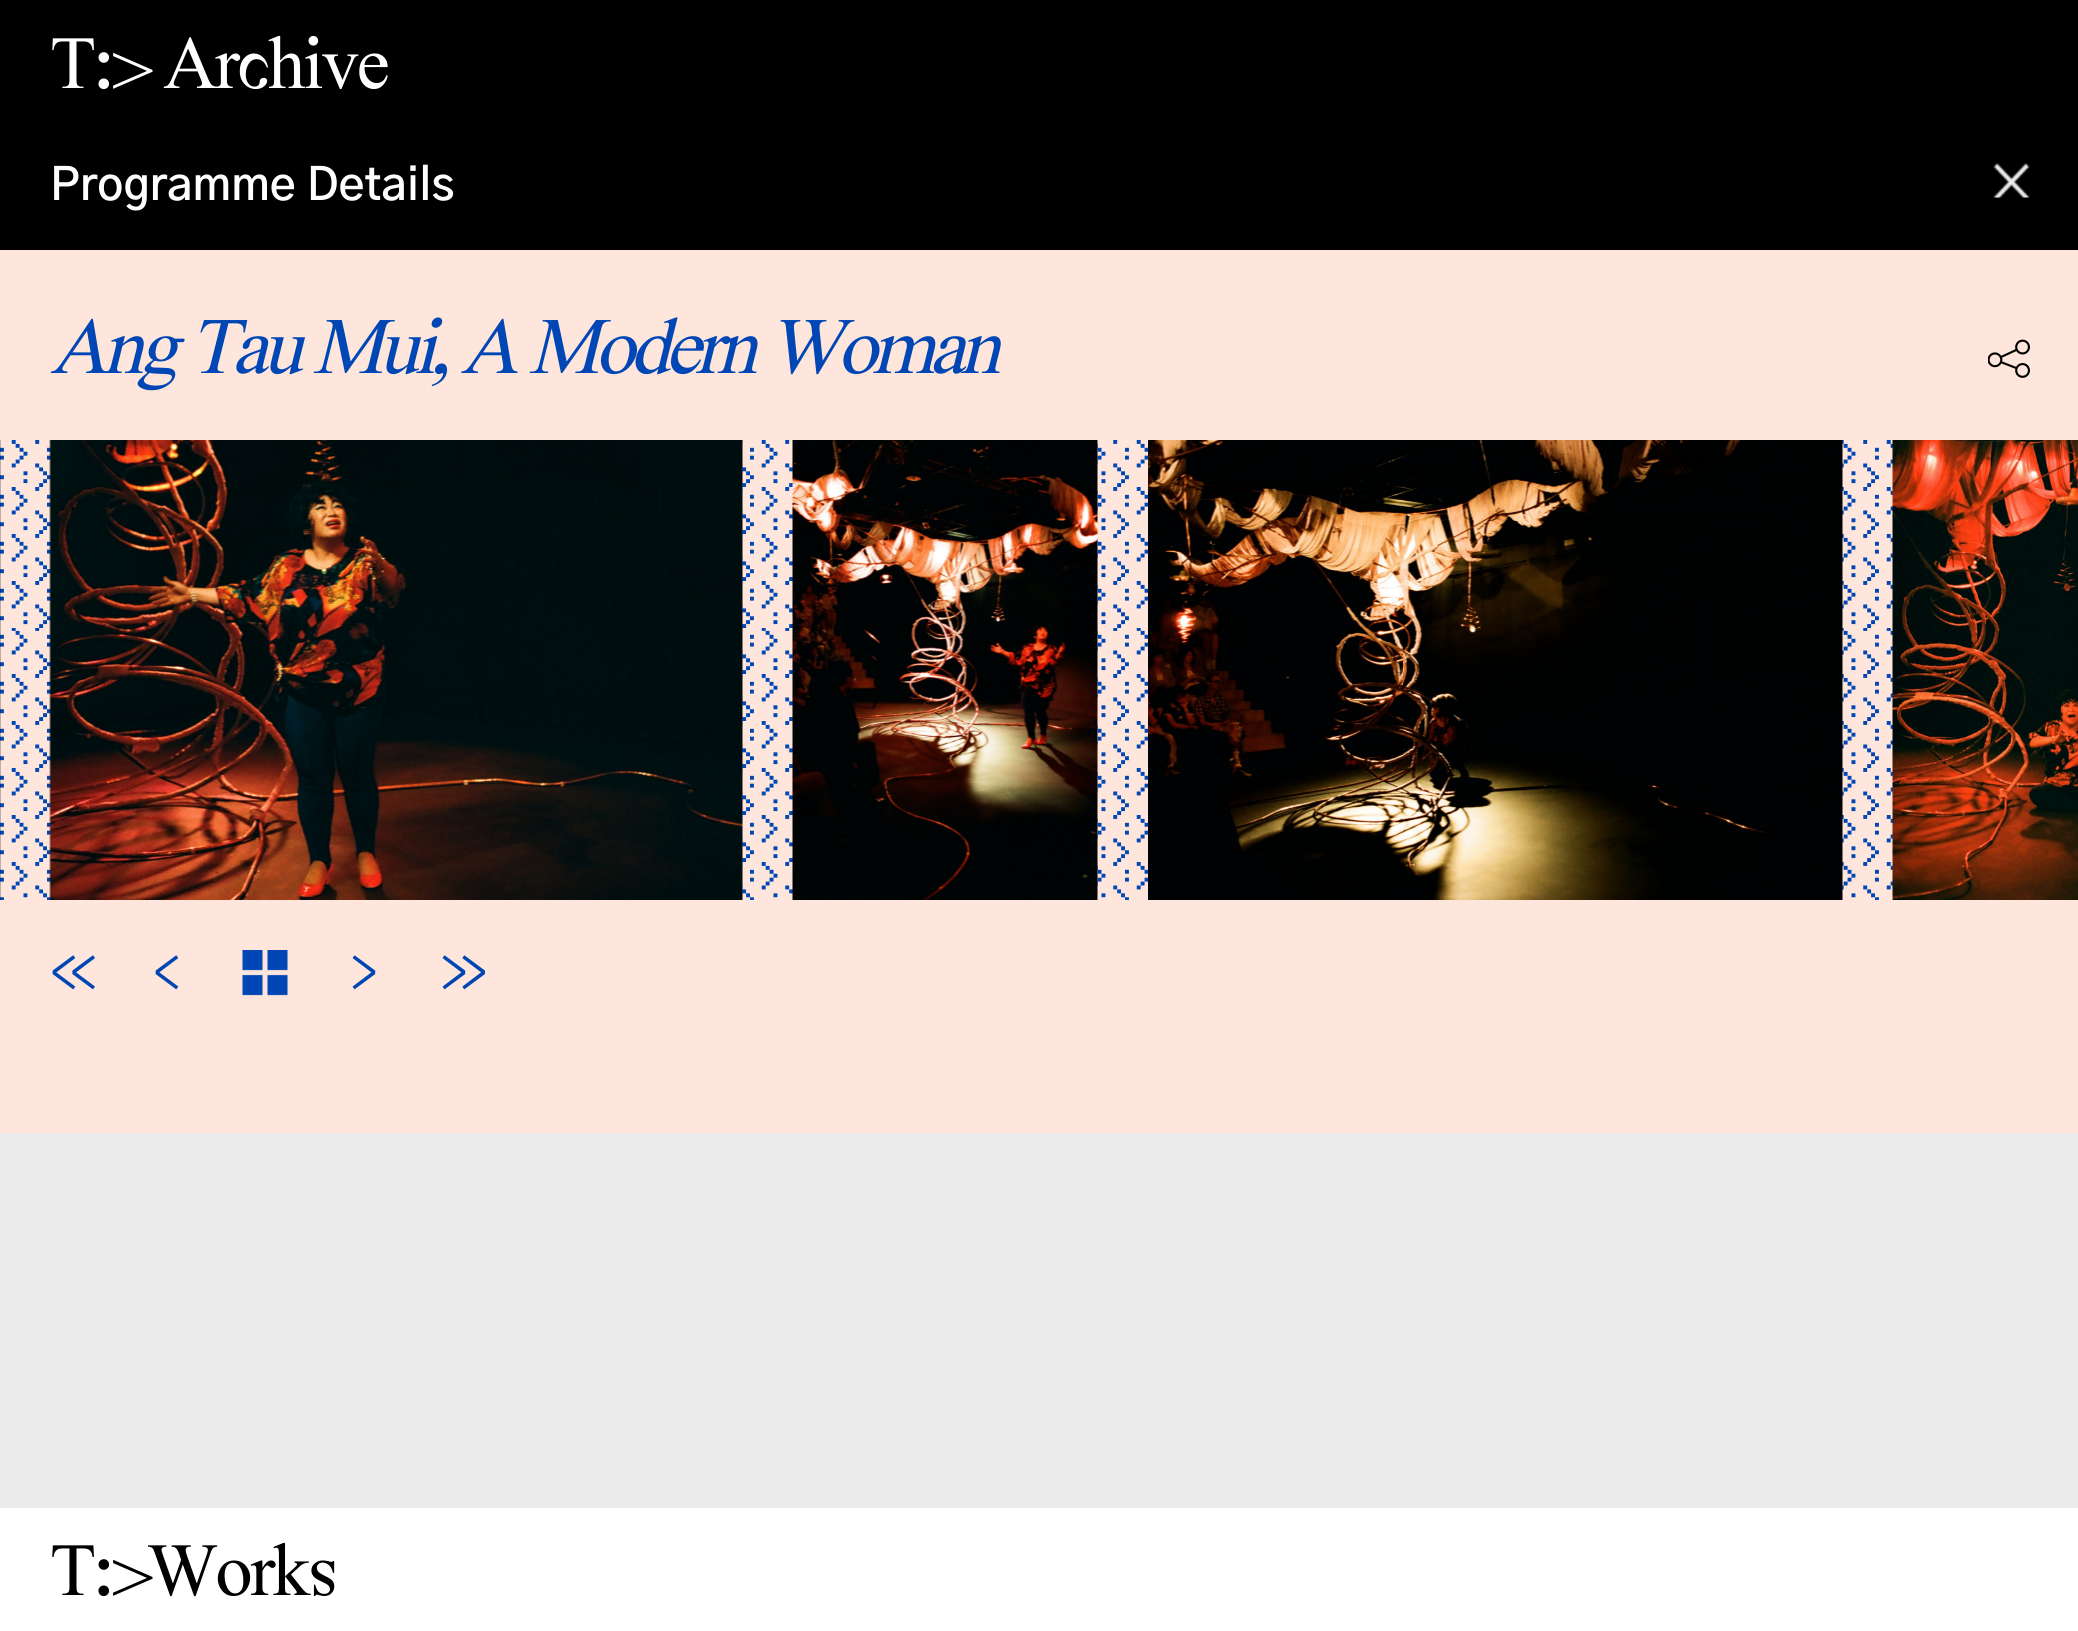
#include <cairo/cairo.h>
#include <math.h>
#include <stddef.h>

static cairo_t *cr;

static void use_color(int r, int g, int b) {
  cairo_set_source_rgb(cr, r / 255.0, g / 255.0, b / 255.0);
}

static void text(double x, double y, const char *s, const char *family, double size, int italic, int bold, int r, int g, int b) {
  cairo_select_font_face(cr, family, italic ? CAIRO_FONT_SLANT_ITALIC : CAIRO_FONT_SLANT_NORMAL,
    bold ? CAIRO_FONT_WEIGHT_BOLD : CAIRO_FONT_WEIGHT_NORMAL);
  cairo_set_font_size(cr, size);
  use_color(r, g, b);
  cairo_move_to(cr, x, y);
  cairo_show_text(cr, s);
}

static void spaced_text(double x, double y, const char *s, double letter, double word) {
  cairo_move_to(cr, x, y);
  while (*s) {
    char ch[5] = {0};
    int n = 0;
    do ch[n++] = *s++; while ((*s & 0xC0) == 0x80);
    cairo_show_text(cr, ch);
    cairo_rel_move_to(cr, letter + word * (*ch == ' '), 0);
  }
}

static void box(double x, double y, double w, double h, int r, int g, int b) {
  use_color(r, g, b);
  cairo_rectangle(cr, x, y, w, h);
  cairo_fill(cr);
}

static void picture(const char *path, double x, double y, double w, double h) {
  cairo_surface_t *image = cairo_image_surface_create_from_png(path);
  cairo_save(cr);
  cairo_set_source_surface(cr, image, x, y);
  cairo_rectangle(cr, x, y, w, h);
  cairo_fill(cr);
  cairo_restore(cr);
  cairo_surface_destroy(image);
}

static void draw(void) {
  use_color(235, 235, 235);
  cairo_paint(cr);
  box(0, 0, 2078, 250, 0, 0, 0);
  picture("img_01.png", 1993, 163, 37, 35);
  box(0, 250, 2078, 883, 255, 230, 220);
  picture("img_02.png", 1988, 339, 42, 39);
  picture("img_03.png", 0, 440, 1893, 460);
  cairo_set_source_rgba(cr, 0, 0, 0, 0.25);
  cairo_rectangle(cr, 0, 440, 1, 460);
  cairo_fill(cr);
  picture("img_04.png", 49, 440, 694, 460);
  picture("img_05.png", 792, 440, 306, 460);
  picture("img_06.png", 1148, 440, 695, 460);
  picture("img_07.png", 1892, 440, 186, 460);
  picture("img_08.png", 242, 950, 46, 46);
  box(0, 1508, 2078, 123, 255, 255, 255);
  cairo_select_font_face(cr, "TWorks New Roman", CAIRO_FONT_SLANT_NORMAL, CAIRO_FONT_WEIGHT_NORMAL);
  cairo_set_font_size(cr, 75);
  spaced_text(50, 88, "T:> Archive", -2.5, 0);
  text(50, 200, "Programme Details", "Gothic A1 SemiBold", 45, 0, 0, 255, 255, 255);
  cairo_select_font_face(cr, "TWorks New Roman", CAIRO_FONT_SLANT_ITALIC, CAIRO_FONT_WEIGHT_NORMAL);
  cairo_set_font_size(cr, 80);
  use_color(0, 70, 180);
  spaced_text(50, 373, "Ang Tau Mui, A Modern Woman", -5, 0);
  cairo_select_font_face(cr, "Gothic A1", CAIRO_FONT_SLANT_NORMAL, CAIRO_FONT_WEIGHT_NORMAL);
  cairo_set_font_size(cr, 50);
  spaced_text(50, 990, "<<", -8, 0);
  text(153, 990, "<", "Gothic A1", 50, 0, 0, 0, 70, 180);
  text(350, 990, ">", "Gothic A1", 50, 0, 0, 0, 70, 180);
  spaced_text(440, 990, ">>", -8, 0);
  cairo_select_font_face(cr, "TWorks New Roman", CAIRO_FONT_SLANT_NORMAL, CAIRO_FONT_WEIGHT_NORMAL);
  cairo_set_font_size(cr, 75);
  use_color(0, 0, 0);
  spaced_text(50, 1595, "T:>Works", -2.5, 0);
}

int main(void) {
  cairo_surface_t *surface = cairo_image_surface_create(CAIRO_FORMAT_RGB24, 2078, 1631);
  cr = cairo_create(surface);
  cairo_font_options_t *options = cairo_font_options_create();
  cairo_font_options_set_hint_metrics(options, CAIRO_HINT_METRICS_OFF);
  cairo_font_options_set_hint_style(options, CAIRO_HINT_STYLE_NONE);
  cairo_set_font_options(cr, options);
  cairo_set_miter_limit(cr, 4);
  draw();
  cairo_surface_write_to_png(surface, "out.png");
  cairo_font_options_destroy(options);
  cairo_destroy(cr);
  cairo_surface_destroy(surface);
  return 0;
}
